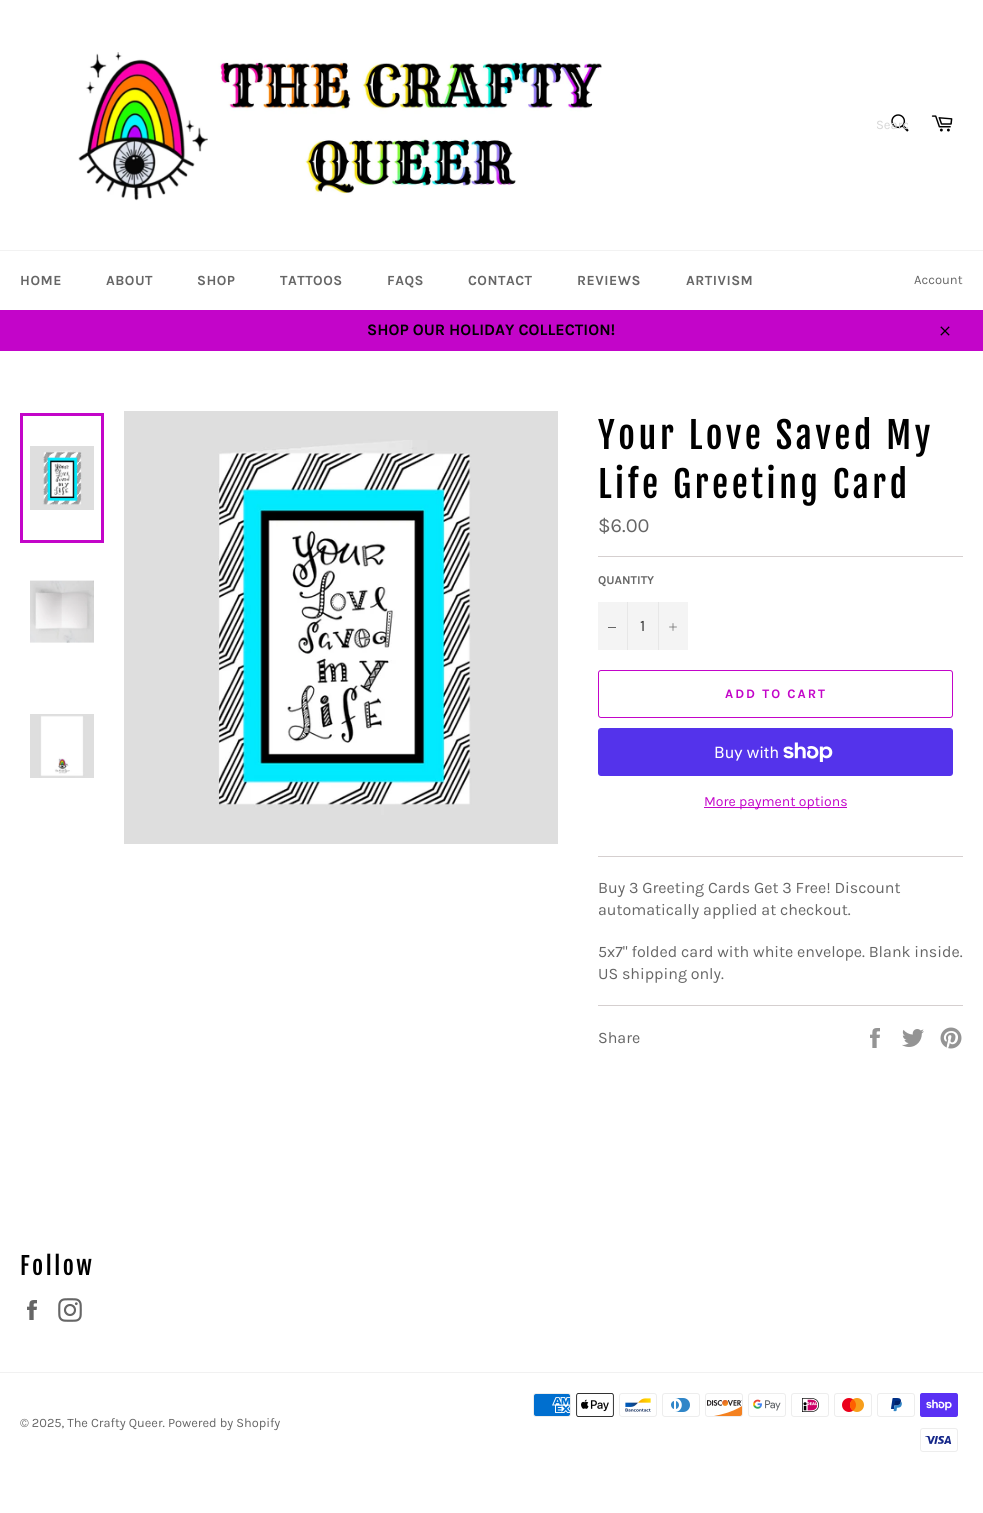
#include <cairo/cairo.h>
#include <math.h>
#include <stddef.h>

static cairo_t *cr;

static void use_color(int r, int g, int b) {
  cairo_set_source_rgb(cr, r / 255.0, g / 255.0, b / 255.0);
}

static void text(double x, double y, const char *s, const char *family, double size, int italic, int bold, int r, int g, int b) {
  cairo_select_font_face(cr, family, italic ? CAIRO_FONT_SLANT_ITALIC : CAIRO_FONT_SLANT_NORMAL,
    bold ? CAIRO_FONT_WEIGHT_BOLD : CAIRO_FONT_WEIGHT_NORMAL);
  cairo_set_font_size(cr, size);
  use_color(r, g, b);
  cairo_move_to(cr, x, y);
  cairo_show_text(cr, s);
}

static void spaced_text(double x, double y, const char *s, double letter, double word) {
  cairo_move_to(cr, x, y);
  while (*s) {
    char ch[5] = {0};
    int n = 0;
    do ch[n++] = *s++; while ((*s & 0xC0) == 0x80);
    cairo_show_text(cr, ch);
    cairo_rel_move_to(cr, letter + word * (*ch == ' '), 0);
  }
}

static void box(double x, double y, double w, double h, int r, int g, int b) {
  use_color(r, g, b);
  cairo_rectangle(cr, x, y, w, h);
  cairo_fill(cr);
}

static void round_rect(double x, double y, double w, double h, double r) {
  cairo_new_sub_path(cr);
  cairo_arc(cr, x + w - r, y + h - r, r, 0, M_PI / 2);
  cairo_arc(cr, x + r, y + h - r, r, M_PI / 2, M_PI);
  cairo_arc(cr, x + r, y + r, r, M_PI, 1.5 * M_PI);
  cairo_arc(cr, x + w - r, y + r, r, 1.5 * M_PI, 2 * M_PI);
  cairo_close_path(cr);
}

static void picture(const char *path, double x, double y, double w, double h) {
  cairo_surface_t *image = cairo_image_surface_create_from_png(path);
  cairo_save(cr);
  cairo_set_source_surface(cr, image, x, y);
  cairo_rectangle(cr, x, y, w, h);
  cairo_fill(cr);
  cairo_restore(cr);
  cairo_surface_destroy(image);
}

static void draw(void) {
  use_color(255, 255, 255);
  cairo_paint(cr);
  picture("img_01.png", 78, 52, 524, 149);
  picture("img_02.png", 891, 114, 18, 18);
  picture("img_03.png", 931, 115, 22, 17);
  box(0, 250, 983, 1, 242, 242, 242);
  box(0, 310, 983, 41, 195, 5, 201);
  picture("img_04.png", 940, 326, 10, 10);
  picture("img_05.png", 30, 446, 64, 64);
  cairo_rectangle(cr, 21.5, 414.5, 81, 127);
  cairo_set_line_width(cr, 3);
  cairo_stroke(cr);
  picture("img_06.png", 30, 580, 64, 63);
  picture("img_07.png", 30, 714, 64, 64);
  picture("img_08.png", 124, 411, 434, 433);
  box(598, 556, 365, 1, 213, 207, 207);
  box(598, 602, 90, 48, 244, 244, 244);
  box(627, 602, 1, 48, 231, 231, 231);
  box(608, 627, 8, 1, 102, 102, 102);
  box(658, 602, 1, 48, 231, 231, 231);
  picture("img_09.png", 669, 623, 8, 8);
  round_rect(598.5, 670.5, 354, 47, 2.5);
  use_color(195, 5, 201);
  cairo_set_line_width(cr, 1);
  cairo_stroke(cr);
  use_color(84, 51, 235);
  round_rect(598, 728, 355, 48, 3);
  cairo_fill(cr);
  picture("img_10.png", 783, 742, 50, 20);
  box(704, 807, 143, 1, 195, 5, 201);
  box(598, 856, 365, 1, 213, 207, 207);
  box(598, 1005, 365, 1, 213, 207, 207);
  picture("img_11.png", 870, 1028, 10, 20);
  picture("img_12.png", 902, 1029, 22, 18);
  picture("img_13.png", 940, 1027, 22, 22);
  picture("img_14.png", 27, 1300, 10, 20);
  picture("img_15.png", 58, 1298, 24, 24);
  box(0, 1372, 983, 1, 241, 241, 241);
  picture("img_16.png", 533, 1393, 38, 24);
  picture("img_17.png", 576, 1393, 38, 24);
  picture("img_18.png", 619, 1393, 38, 24);
  picture("img_19.png", 662, 1393, 38, 24);
  picture("img_20.png", 705, 1393, 38, 24);
  picture("img_21.png", 748, 1393, 38, 24);
  picture("img_22.png", 791, 1393, 38, 24);
  picture("img_23.png", 834, 1393, 38, 24);
  picture("img_24.png", 877, 1393, 38, 24);
  picture("img_25.png", 920, 1393, 38, 24);
  picture("img_26.png", 920, 1428, 38, 24);
  text(876, 129, "Searc", "Karla", 13, 0, 0, 214, 214, 214);
  cairo_select_font_face(cr, "Karla", CAIRO_FONT_SLANT_NORMAL, CAIRO_FONT_WEIGHT_BOLD);
  cairo_set_font_size(cr, 14);
  use_color(102, 102, 102);
  spaced_text(20, 285, "HOME", 0.5, 0);
  spaced_text(106, 285, "ABOUT", 0.5, 0);
  spaced_text(197, 285, "SHOP", 0.5, 0);
  spaced_text(280, 285, "TATTOOS", 0.5, 0);
  spaced_text(387, 285, "FAQS", 0.5, 0);
  spaced_text(468, 285, "CONTACT", 0.5, 0);
  spaced_text(577, 285, "REVIEWS", 0.5, 0);
  spaced_text(686, 285, "ARTIVISM", 0.5, 0);
  text(914, 284, "Account", "Karla", 13, 0, 0, 102, 102, 102);
  text(367, 335, "SHOP OUR HOLIDAY COLLECTION!", "Karla", 16, 0, 1, 0, 0, 0);
  cairo_select_font_face(cr, "Fjalla One", CAIRO_FONT_SLANT_NORMAL, CAIRO_FONT_WEIGHT_NORMAL);
  cairo_set_font_size(cr, 36);
  spaced_text(598, 449, "Your Love Saved My", 3.6, 0);
  spaced_text(598, 498, "Life Greeting Card", 3.6, 0);
  text(598, 532, "$6.00", "Karla", 20, 0, 0, 102, 102, 102);
  text(598, 584, "QUANTITY", "Karla", 12, 0, 1, 102, 102, 102);
  text(640, 631, "1", "Karla", 16, 0, 0, 51, 51, 51);
  cairo_select_font_face(cr, "Karla", CAIRO_FONT_SLANT_NORMAL, CAIRO_FONT_WEIGHT_BOLD);
  cairo_set_font_size(cr, 13);
  use_color(195, 5, 201);
  spaced_text(725, 698, "ADD TO CART", 2, 0);
  text(714, 758, "Buy with", "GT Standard", 16, 0, 0, 255, 255, 255);
  text(704, 806, "More payment options", "Karla", 14, 0, 0, 195, 5, 201);
  text(598, 893, "Buy 3 Greeting Cards Get 3 Free! Discount", "Karla", 16, 0, 0, 102, 102, 102);
  text(598, 915, "automatically applied at checkout.", "Karla", 16, 0, 0, 102, 102, 102);
  text(598, 957, "5x7\" folded card with white envelope. Blank inside.", "Karla", 16, 0, 0, 102, 102, 102);
  text(598, 979, "US shipping only.", "Karla", 16, 0, 0, 102, 102, 102);
  text(598, 1043, "Share", "Karla", 16, 0, 0, 102, 102, 102);
  cairo_select_font_face(cr, "Fjalla One", CAIRO_FONT_SLANT_NORMAL, CAIRO_FONT_WEIGHT_NORMAL);
  cairo_set_font_size(cr, 24);
  use_color(0, 0, 0);
  spaced_text(20, 1275, "Follow", 2.5, 0);
  text(20, 1427, "© 2025, The Crafty Queer. Powered by Shopify", "Karla", 12.8, 0, 0, 102, 102, 102);
}

int main(void) {
  cairo_surface_t *surface = cairo_image_surface_create(CAIRO_FORMAT_RGB24, 983, 1513);
  cr = cairo_create(surface);
  cairo_font_options_t *options = cairo_font_options_create();
  cairo_font_options_set_hint_metrics(options, CAIRO_HINT_METRICS_OFF);
  cairo_font_options_set_hint_style(options, CAIRO_HINT_STYLE_NONE);
  cairo_set_font_options(cr, options);
  cairo_set_miter_limit(cr, 4);
  draw();
  cairo_surface_write_to_png(surface, "out.png");
  cairo_font_options_destroy(options);
  cairo_destroy(cr);
  cairo_surface_destroy(surface);
  return 0;
}
